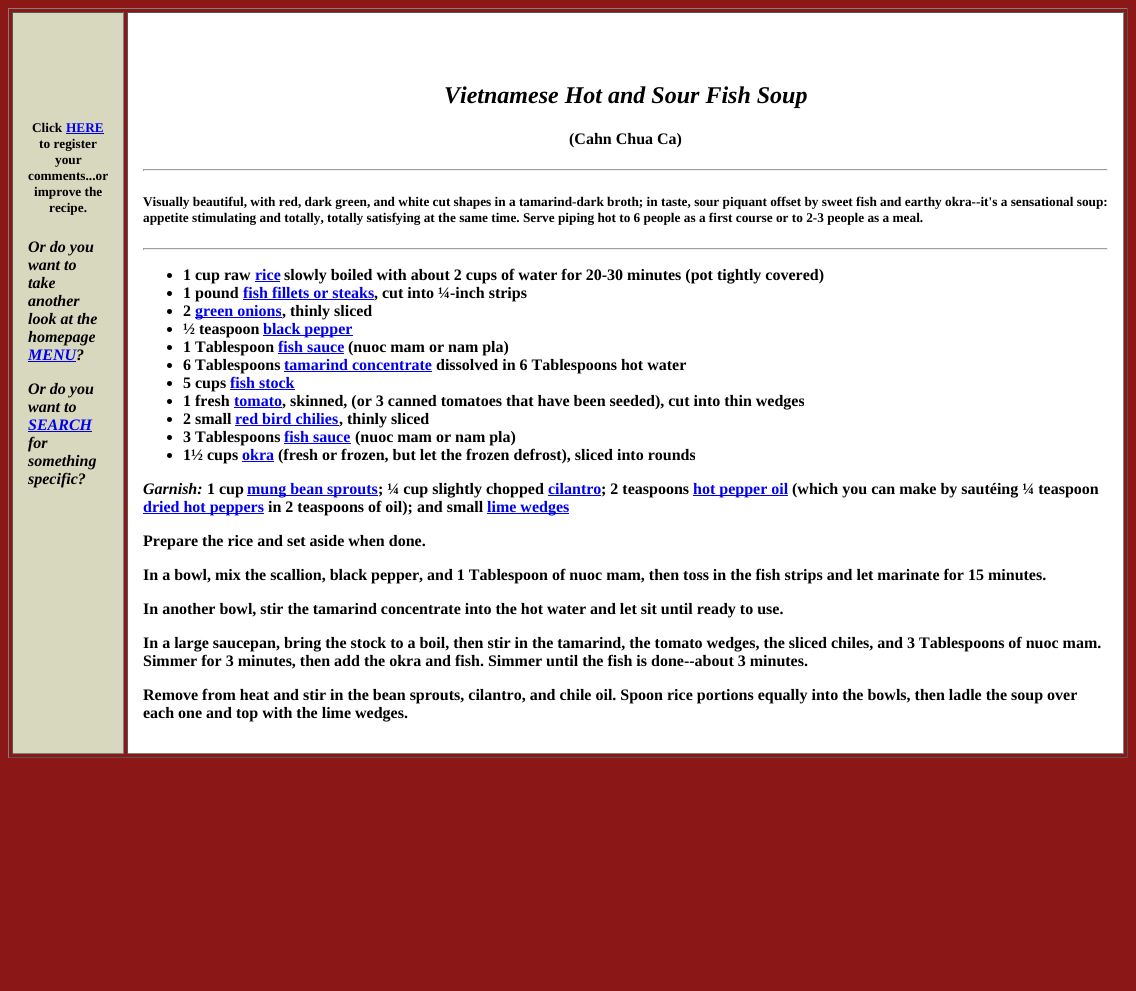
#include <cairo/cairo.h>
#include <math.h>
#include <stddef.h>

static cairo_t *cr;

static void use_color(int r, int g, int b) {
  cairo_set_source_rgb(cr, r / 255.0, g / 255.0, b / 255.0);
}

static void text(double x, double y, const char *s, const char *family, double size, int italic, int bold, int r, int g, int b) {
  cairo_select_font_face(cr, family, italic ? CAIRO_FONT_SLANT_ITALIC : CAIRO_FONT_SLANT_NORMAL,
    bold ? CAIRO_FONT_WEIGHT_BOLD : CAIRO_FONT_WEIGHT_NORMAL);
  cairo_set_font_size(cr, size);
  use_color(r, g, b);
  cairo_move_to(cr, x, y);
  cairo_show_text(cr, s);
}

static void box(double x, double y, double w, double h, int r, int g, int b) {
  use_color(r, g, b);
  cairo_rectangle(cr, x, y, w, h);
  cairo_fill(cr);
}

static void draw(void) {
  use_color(140, 23, 23);
  cairo_paint(cr);
  box(8, 8, 1120, 1, 128, 128, 128);
  box(1127, 8, 1, 750, 85, 85, 85);
  box(8, 757, 1120, 1, 85, 85, 85);
  box(8, 8, 1, 750, 128, 128, 128);
  box(13, 13, 110, 740, 216, 216, 191);
  box(12, 12, 112, 1, 85, 85, 85);
  box(123, 12, 1, 742, 128, 128, 128);
  box(12, 753, 112, 1, 128, 128, 128);
  box(12, 12, 1, 742, 85, 85, 85);
  box(66, 133, 38, 1, 0, 0, 238);
  box(28, 361, 48, 1, 0, 0, 238);
  box(28, 431, 64, 1, 0, 0, 238);
  box(128, 13, 995, 740, 255, 255, 255);
  box(127, 12, 997, 1, 85, 85, 85);
  box(1123, 12, 1, 742, 128, 128, 128);
  box(127, 753, 997, 1, 128, 128, 128);
  box(127, 12, 1, 742, 85, 85, 85);
  box(143, 169, 965, 1, 159, 159, 159);
  box(1107, 169, 1, 2, 238, 238, 238);
  box(143, 170, 965, 1, 238, 238, 238);
  box(143, 169, 1, 2, 159, 159, 159);
  box(143, 248, 965, 1, 159, 159, 159);
  box(1107, 248, 1, 2, 238, 238, 238);
  box(143, 249, 965, 1, 238, 238, 238);
  box(143, 248, 1, 2, 159, 159, 159);
  use_color(0, 0, 0);
  cairo_arc(cr, 169.5, 275.5, 2.5, 0, 2 * M_PI);
  cairo_fill(cr);
  box(255, 281, 25, 1, 0, 0, 238);
  use_color(0, 0, 0);
  cairo_arc(cr, 169.5, 293.5, 2.5, 0, 2 * M_PI);
  cairo_fill(cr);
  box(243, 299, 131, 1, 0, 0, 238);
  use_color(0, 0, 0);
  cairo_arc(cr, 169.5, 311.5, 2.5, 0, 2 * M_PI);
  cairo_fill(cr);
  box(195, 317, 87, 1, 0, 0, 238);
  use_color(0, 0, 0);
  cairo_arc(cr, 169.5, 329.5, 2.5, 0, 2 * M_PI);
  cairo_fill(cr);
  box(263, 335, 90, 1, 0, 0, 238);
  use_color(0, 0, 0);
  cairo_arc(cr, 169.5, 347.5, 2.5, 0, 2 * M_PI);
  cairo_fill(cr);
  box(278, 353, 66, 1, 0, 0, 238);
  use_color(0, 0, 0);
  cairo_arc(cr, 169.5, 365.5, 2.5, 0, 2 * M_PI);
  cairo_fill(cr);
  box(284, 371, 148, 1, 0, 0, 238);
  use_color(0, 0, 0);
  cairo_arc(cr, 169.5, 383.5, 2.5, 0, 2 * M_PI);
  cairo_fill(cr);
  box(230, 389, 65, 1, 0, 0, 238);
  use_color(0, 0, 0);
  cairo_arc(cr, 169.5, 401.5, 2.5, 0, 2 * M_PI);
  cairo_fill(cr);
  box(234, 407, 48, 1, 0, 0, 238);
  use_color(0, 0, 0);
  cairo_arc(cr, 169.5, 419.5, 2.5, 0, 2 * M_PI);
  cairo_fill(cr);
  box(235, 425, 104, 1, 0, 0, 238);
  use_color(0, 0, 0);
  cairo_arc(cr, 169.5, 437.5, 2.5, 0, 2 * M_PI);
  cairo_fill(cr);
  box(284, 443, 67, 1, 0, 0, 238);
  use_color(0, 0, 0);
  cairo_arc(cr, 169.5, 455.5, 2.5, 0, 2 * M_PI);
  cairo_fill(cr);
  box(242, 461, 32, 1, 0, 0, 238);
  box(247, 495, 131, 1, 0, 0, 238);
  box(548, 495, 53, 1, 0, 0, 238);
  box(693, 495, 95, 1, 0, 0, 238);
  box(143, 513, 121, 1, 0, 0, 238);
  box(487, 513, 82, 1, 0, 0, 238);
  text(32, 132, "Click", "Liberation Serif", 13.28, 0, 1, 0, 0, 0);
  text(66, 132, "HERE", "Liberation Serif", 13.28, 0, 1, 0, 0, 238);
  text(39, 148, "to register", "Liberation Serif", 13.28, 0, 1, 0, 0, 0);
  text(55, 164, "your", "Liberation Serif", 13.28, 0, 1, 0, 0, 0);
  text(28, 180, "comments...or", "Liberation Serif", 13.28, 0, 1, 0, 0, 0);
  text(34, 196, "improve the", "Liberation Serif", 13.28, 0, 1, 0, 0, 0);
  text(49, 212, "recipe.", "Liberation Serif", 13.28, 0, 1, 0, 0, 0);
  text(28, 252, "Or do you", "Liberation Serif", 16, 1, 1, 0, 0, 0);
  text(28, 270, "want to", "Liberation Serif", 16, 1, 1, 0, 0, 0);
  text(28, 288, "take", "Liberation Serif", 16, 1, 1, 0, 0, 0);
  text(28, 306, "another", "Liberation Serif", 16, 1, 1, 0, 0, 0);
  text(28, 324, "look at the", "Liberation Serif", 16, 1, 1, 0, 0, 0);
  text(28, 342, "homepage", "Liberation Serif", 16, 1, 1, 0, 0, 0);
  text(28, 360, "MENU", "Liberation Serif", 16, 1, 1, 0, 0, 238);
  text(76, 360, "?", "Liberation Serif", 16, 1, 1, 0, 0, 0);
  text(28, 394, "Or do you", "Liberation Serif", 16, 1, 1, 0, 0, 0);
  text(28, 412, "want to", "Liberation Serif", 16, 1, 1, 0, 0, 0);
  text(28, 430, "SEARCH", "Liberation Serif", 16, 1, 1, 0, 0, 238);
  text(28, 448, "for", "Liberation Serif", 16, 1, 1, 0, 0, 0);
  text(28, 466, "something", "Liberation Serif", 16, 1, 1, 0, 0, 0);
  text(28, 484, "specific?", "Liberation Serif", 16, 1, 1, 0, 0, 0);
  text(444, 103, "Vietnamese Hot and Sour Fish Soup", "Liberation Serif", 24, 1, 1, 0, 0, 0);
  text(569, 144, "(Cahn Chua Ca)", "Liberation Serif", 16, 0, 1, 0, 0, 0);
  text(143, 206, "Visually beautiful, with red, dark green, and white cut shapes in a tamarind-dark broth; in taste, sour piquant offset by sweet fish and earthy okra--it's a sensational soup:", "Liberation Serif", 13.28, 0, 1, 0, 0, 0);
  text(143, 222, "appetite stimulating and totally, totally satisfying at the same time. Serve piping hot to 6 people as a first course or to 2-3 people as a meal.", "Liberation Serif", 13.28, 0, 1, 0, 0, 0);
  text(183, 280, "1 cup raw", "Liberation Serif", 16, 0, 1, 0, 0, 0);
  text(255, 280, "rice", "Liberation Serif", 16, 0, 1, 0, 0, 238);
  text(284, 280, "slowly boiled with about 2 cups of water for 20-30 minutes (pot tightly covered)", "Liberation Serif", 16, 0, 1, 0, 0, 0);
  text(183, 298, "1 pound", "Liberation Serif", 16, 0, 1, 0, 0, 0);
  text(243, 298, "fish fillets or steaks", "Liberation Serif", 16, 0, 1, 0, 0, 238);
  text(374, 298, ", cut into ¼-inch strips", "Liberation Serif", 16, 0, 1, 0, 0, 0);
  text(183, 316, "2", "Liberation Serif", 16, 0, 1, 0, 0, 0);
  text(195, 316, "green onions", "Liberation Serif", 16, 0, 1, 0, 0, 238);
  text(282, 316, ", thinly sliced", "Liberation Serif", 16, 0, 1, 0, 0, 0);
  text(183, 334, "½ teaspoon", "Liberation Serif", 16, 0, 1, 0, 0, 0);
  text(263, 334, "black pepper", "Liberation Serif", 16, 0, 1, 0, 0, 238);
  text(183, 352, "1 Tablespoon", "Liberation Serif", 16, 0, 1, 0, 0, 0);
  text(278, 352, "fish sauce", "Liberation Serif", 16, 0, 1, 0, 0, 238);
  text(348, 352, "(nuoc mam or nam pla)", "Liberation Serif", 16, 0, 1, 0, 0, 0);
  text(183, 370, "6 Tablespoons", "Liberation Serif", 16, 0, 1, 0, 0, 0);
  text(284, 370, "tamarind concentrate", "Liberation Serif", 16, 0, 1, 0, 0, 238);
  text(436, 370, "dissolved in 6 Tablespoons hot water", "Liberation Serif", 16, 0, 1, 0, 0, 0);
  text(183, 388, "5 cups", "Liberation Serif", 16, 0, 1, 0, 0, 0);
  text(230, 388, "fish stock", "Liberation Serif", 16, 0, 1, 0, 0, 238);
  text(183, 406, "1 fresh", "Liberation Serif", 16, 0, 1, 0, 0, 0);
  text(234, 406, "tomato", "Liberation Serif", 16, 0, 1, 0, 0, 238);
  text(282, 406, ", skinned, (or 3 canned tomatoes that have been seeded), cut into thin wedges", "Liberation Serif", 16, 0, 1, 0, 0, 0);
  text(183, 424, "2 small", "Liberation Serif", 16, 0, 1, 0, 0, 0);
  text(235, 424, "red bird chilies", "Liberation Serif", 16, 0, 1, 0, 0, 238);
  text(339, 424, ", thinly sliced", "Liberation Serif", 16, 0, 1, 0, 0, 0);
  text(183, 442, "3 Tablespoons", "Liberation Serif", 16, 0, 1, 0, 0, 0);
  text(284, 442, "fish sauce", "Liberation Serif", 16, 0, 1, 0, 0, 238);
  text(355, 442, "(nuoc mam or nam pla)", "Liberation Serif", 16, 0, 1, 0, 0, 0);
  text(183, 460, "1½ cups", "Liberation Serif", 16, 0, 1, 0, 0, 0);
  text(242, 460, "okra", "Liberation Serif", 16, 0, 1, 0, 0, 238);
  text(278, 460, "(fresh or frozen, but let the frozen defrost), sliced into rounds", "Liberation Serif", 16, 0, 1, 0, 0, 0);
  text(143, 494, "Garnish:", "Liberation Serif", 16, 1, 1, 0, 0, 0);
  text(207, 494, "1 cup", "Liberation Serif", 16, 0, 1, 0, 0, 0);
  text(247, 494, "mung bean sprouts", "Liberation Serif", 16, 0, 1, 0, 0, 238);
  text(378, 494, "; ¼ cup slightly chopped", "Liberation Serif", 16, 0, 1, 0, 0, 0);
  text(548, 494, "cilantro", "Liberation Serif", 16, 0, 1, 0, 0, 238);
  text(601, 494, "; 2 teaspoons", "Liberation Serif", 16, 0, 1, 0, 0, 0);
  text(693, 494, "hot pepper oil", "Liberation Serif", 16, 0, 1, 0, 0, 238);
  text(792, 494, "(which you can make by sautéing ¼ teaspoon", "Liberation Serif", 16, 0, 1, 0, 0, 0);
  text(143, 512, "dried hot peppers", "Liberation Serif", 16, 0, 1, 0, 0, 238);
  text(268, 512, "in 2 teaspoons of oil); and small", "Liberation Serif", 16, 0, 1, 0, 0, 0);
  text(487, 512, "lime wedges", "Liberation Serif", 16, 0, 1, 0, 0, 238);
  text(143, 546, "Prepare the rice and set aside when done.", "Liberation Serif", 16, 0, 1, 0, 0, 0);
  text(143, 580, "In a bowl, mix the scallion, black pepper, and 1 Tablespoon of nuoc mam, then toss in the fish strips and let marinate for 15 minutes.", "Liberation Serif", 16, 0, 1, 0, 0, 0);
  text(143, 614, "In another bowl, stir the tamarind concentrate into the hot water and let sit until ready to use.", "Liberation Serif", 16, 0, 1, 0, 0, 0);
  text(143, 648, "In a large saucepan, bring the stock to a boil, then stir in the tamarind, the tomato wedges, the sliced chiles, and 3 Tablespoons of nuoc mam.", "Liberation Serif", 16, 0, 1, 0, 0, 0);
  text(143, 666, "Simmer for 3 minutes, then add the okra and fish. Simmer until the fish is done--about 3 minutes.", "Liberation Serif", 16, 0, 1, 0, 0, 0);
  text(143, 700, "Remove from heat and stir in the bean sprouts, cilantro, and chile oil. Spoon rice portions equally into the bowls, then ladle the soup over", "Liberation Serif", 16, 0, 1, 0, 0, 0);
  text(143, 718, "each one and top with the lime wedges.", "Liberation Serif", 16, 0, 1, 0, 0, 0);
}

int main(void) {
  cairo_surface_t *surface = cairo_image_surface_create(CAIRO_FORMAT_RGB24, 1136, 991);
  cr = cairo_create(surface);
  cairo_font_options_t *options = cairo_font_options_create();
  cairo_font_options_set_hint_metrics(options, CAIRO_HINT_METRICS_OFF);
  cairo_font_options_set_hint_style(options, CAIRO_HINT_STYLE_NONE);
  cairo_set_font_options(cr, options);
  cairo_set_miter_limit(cr, 4);
  draw();
  cairo_surface_write_to_png(surface, "out.png");
  cairo_font_options_destroy(options);
  cairo_destroy(cr);
  cairo_surface_destroy(surface);
  return 0;
}
